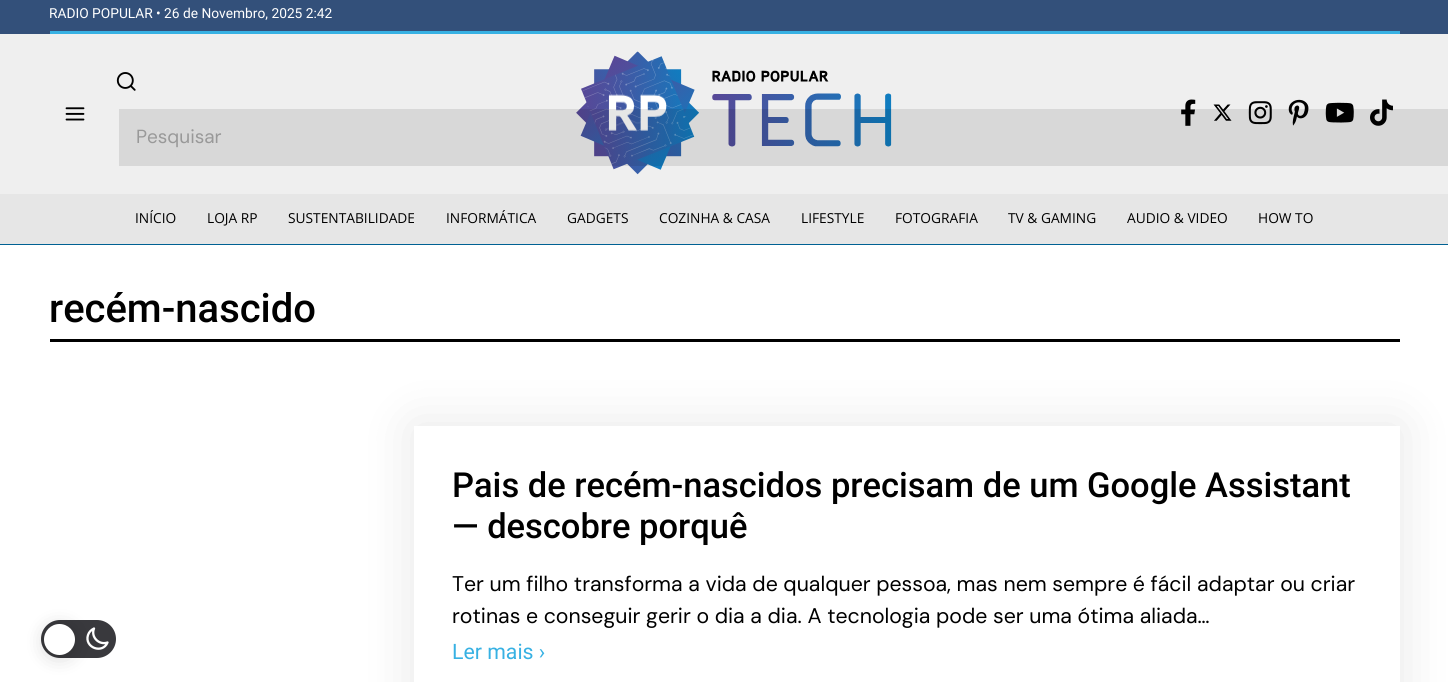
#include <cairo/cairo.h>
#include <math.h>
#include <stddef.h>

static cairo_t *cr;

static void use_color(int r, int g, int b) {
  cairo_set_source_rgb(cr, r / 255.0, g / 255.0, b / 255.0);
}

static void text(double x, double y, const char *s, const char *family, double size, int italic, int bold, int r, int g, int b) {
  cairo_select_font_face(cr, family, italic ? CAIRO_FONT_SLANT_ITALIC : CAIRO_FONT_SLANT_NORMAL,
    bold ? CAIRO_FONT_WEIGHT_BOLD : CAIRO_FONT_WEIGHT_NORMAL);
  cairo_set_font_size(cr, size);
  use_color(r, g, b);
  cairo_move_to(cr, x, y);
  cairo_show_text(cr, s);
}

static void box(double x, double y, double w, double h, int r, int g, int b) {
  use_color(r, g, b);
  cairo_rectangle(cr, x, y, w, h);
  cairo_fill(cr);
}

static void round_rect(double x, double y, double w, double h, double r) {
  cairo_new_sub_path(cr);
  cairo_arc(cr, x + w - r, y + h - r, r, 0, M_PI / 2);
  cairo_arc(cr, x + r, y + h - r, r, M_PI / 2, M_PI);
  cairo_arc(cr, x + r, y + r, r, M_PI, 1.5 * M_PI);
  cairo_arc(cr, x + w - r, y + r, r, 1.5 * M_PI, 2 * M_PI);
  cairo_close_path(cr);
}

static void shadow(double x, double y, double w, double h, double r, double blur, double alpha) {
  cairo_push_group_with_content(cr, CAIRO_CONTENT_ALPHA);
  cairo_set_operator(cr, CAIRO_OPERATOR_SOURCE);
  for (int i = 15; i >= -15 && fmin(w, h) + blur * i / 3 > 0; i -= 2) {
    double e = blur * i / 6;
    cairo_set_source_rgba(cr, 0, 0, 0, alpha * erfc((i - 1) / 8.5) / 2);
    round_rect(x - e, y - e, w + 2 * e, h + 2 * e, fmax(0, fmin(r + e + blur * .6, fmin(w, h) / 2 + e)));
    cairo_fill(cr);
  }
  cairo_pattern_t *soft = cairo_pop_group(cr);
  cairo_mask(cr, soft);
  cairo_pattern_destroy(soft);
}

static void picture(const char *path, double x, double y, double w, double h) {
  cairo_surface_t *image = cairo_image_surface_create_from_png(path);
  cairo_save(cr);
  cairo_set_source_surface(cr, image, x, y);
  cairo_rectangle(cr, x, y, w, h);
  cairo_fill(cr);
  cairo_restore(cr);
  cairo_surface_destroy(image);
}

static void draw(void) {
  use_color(255, 255, 255);
  cairo_paint(cr);
  box(0, 0, 1448, 34, 51, 80, 122);
  box(50, 31, 1350, 3, 55, 177, 227);
  box(0, 34, 1448, 160, 239, 239, 239);
  picture("img_01.png", 576, 51, 316, 124);
  cairo_set_source_rgba(cr, 0, 0, 0, 0.1);
  cairo_rectangle(cr, 119, 109, 1329, 57);
  cairo_fill(cr);
  picture("img_02.png", 1181, 99, 15, 27);
  picture("img_03.png", 1213, 104, 19, 17);
  picture("img_04.png", 1248, 101, 24, 24);
  picture("img_05.png", 1288, 99, 21, 27);
  picture("img_06.png", 1325, 102, 29, 21);
  picture("img_07.png", 1370, 99, 23, 27);
  picture("img_08.png", 65, 107, 20, 14);
  picture("img_09.png", 116, 72, 20, 19);
  box(0, 194, 1448, 50, 230, 230, 230);
  box(0, 244, 1448, 1, 0, 97, 147);
  box(50, 339, 1350, 3, 0, 0, 0);
  use_color(0, 0, 0);
  shadow(414, 426, 986, 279, 0, 25, 0.1);
  box(414, 426, 986, 256, 255, 255, 255);
  use_color(57, 57, 61);
  round_rect(41, 620, 75, 38, 19);
  cairo_fill(cr);
  cairo_new_path(cr);
  cairo_move_to(cr, 107.5, 642.5);
  cairo_curve_to(cr, 99, 645.5, 90.5, 637, 94, 628.5);
  cairo_curve_to(cr, 91, 630, 89, 632, 88, 635);
  cairo_curve_to(cr, 84, 647.5, 102.5, 654.5, 107.5, 642.5);
  cairo_close_path(cr);
  use_color(255, 255, 255);
  cairo_set_line_width(cr, 2.3);
  cairo_set_line_cap(cr, CAIRO_LINE_CAP_ROUND);
  cairo_set_line_join(cr, CAIRO_LINE_JOIN_ROUND);
  cairo_stroke(cr);
  use_color(0, 0, 0);
  shadow(44, 626, 31, 32, 15.5, 9.5, 0.15);
  use_color(255, 255, 255);
  cairo_arc(cr, 59.5, 639.5, 15.5, 0, 2 * M_PI);
  cairo_fill(cr);
  text(49, 18, "RADIO POPULAR • 26 de Novembro, 2025 2:42", "Roboto", 13.75, 0, 0, 255, 255, 255);
  text(136, 143, "Pesquisar", "DM Sans", 19, 0, 0, 153, 153, 153);
  text(135, 223, "INÍCIO", "Open Sans", 13.75, 0, 0, 0, 0, 0);
  text(207, 223, "LOJA RP", "Open Sans", 13.75, 0, 0, 0, 0, 0);
  text(288, 223, "SUSTENTABILIDADE", "Open Sans", 13.75, 0, 0, 0, 0, 0);
  text(446, 223, "INFORMÁTICA", "Open Sans", 13.75, 0, 0, 0, 0, 0);
  text(567, 223, "GADGETS", "Open Sans", 13.75, 0, 0, 0, 0, 0);
  text(659, 223, "COZINHA & CASA", "Open Sans", 13.75, 0, 0, 0, 0, 0);
  text(801, 223, "LIFESTYLE", "Open Sans", 13.75, 0, 0, 0, 0, 0);
  text(895, 223, "FOTOGRAFIA", "Open Sans", 13.75, 0, 0, 0, 0, 0);
  text(1008, 223, "TV & GAMING", "Open Sans", 13.75, 0, 0, 0, 0, 0);
  text(1127, 223, "AUDIO & VIDEO", "Open Sans", 13.75, 0, 0, 0, 0, 0);
  text(1258, 223, "HOW TO", "Open Sans", 13.75, 0, 0, 0, 0, 0);
  text(49, 322, "recém-nascido", "Roboto Medium", 40, 0, 0, 0, 0, 0);
  text(452, 497, "Pais de recém-nascidos precisam de um Google Assistant", "Roboto Medium", 34.5, 0, 0, 0, 0, 0);
  text(452, 538, "— descobre porquê", "Roboto Medium", 34.5, 0, 0, 0, 0, 0);
  text(452, 591, "Ter um filho transforma a vida de qualquer pessoa, mas nem sempre é fácil adaptar ou criar", "DM Sans", 21.25, 0, 0, 0, 0, 0);
  text(452, 623, "rotinas e conseguir gerir o dia a dia. A tecnologia pode ser uma ótima aliada…", "DM Sans", 21.25, 0, 0, 0, 0, 0);
  text(452, 659, "Ler mais ›", "Roboto", 21.25, 0, 0, 55, 177, 227);
}

int main(void) {
  cairo_surface_t *surface = cairo_image_surface_create(CAIRO_FORMAT_RGB24, 1448, 682);
  cr = cairo_create(surface);
  cairo_font_options_t *options = cairo_font_options_create();
  cairo_font_options_set_hint_metrics(options, CAIRO_HINT_METRICS_OFF);
  cairo_font_options_set_hint_style(options, CAIRO_HINT_STYLE_NONE);
  cairo_set_font_options(cr, options);
  cairo_set_miter_limit(cr, 4);
  draw();
  cairo_surface_write_to_png(surface, "out.png");
  cairo_font_options_destroy(options);
  cairo_destroy(cr);
  cairo_surface_destroy(surface);
  return 0;
}
